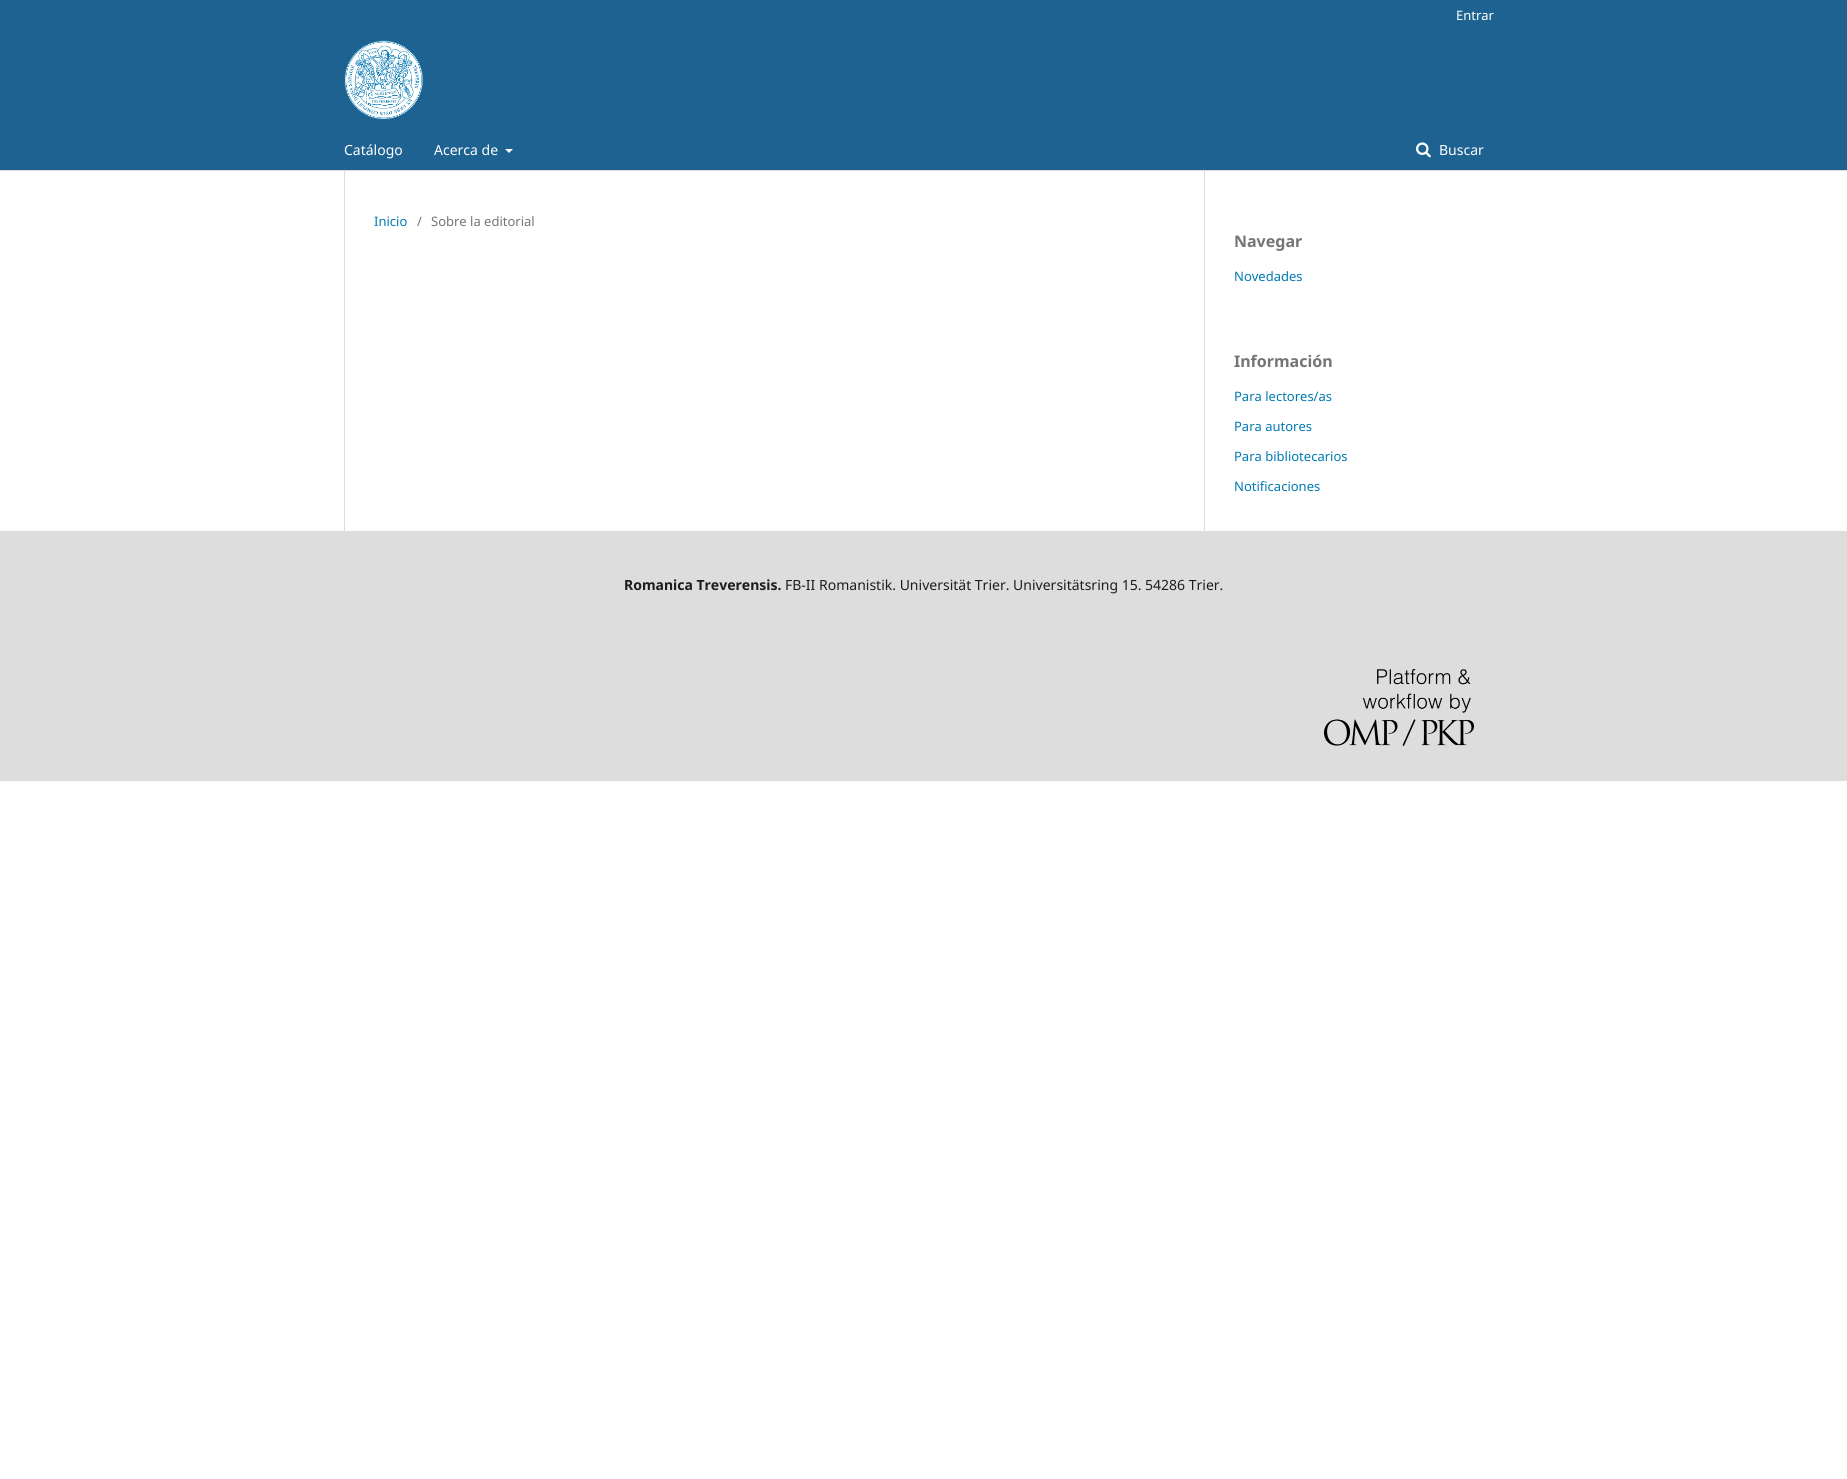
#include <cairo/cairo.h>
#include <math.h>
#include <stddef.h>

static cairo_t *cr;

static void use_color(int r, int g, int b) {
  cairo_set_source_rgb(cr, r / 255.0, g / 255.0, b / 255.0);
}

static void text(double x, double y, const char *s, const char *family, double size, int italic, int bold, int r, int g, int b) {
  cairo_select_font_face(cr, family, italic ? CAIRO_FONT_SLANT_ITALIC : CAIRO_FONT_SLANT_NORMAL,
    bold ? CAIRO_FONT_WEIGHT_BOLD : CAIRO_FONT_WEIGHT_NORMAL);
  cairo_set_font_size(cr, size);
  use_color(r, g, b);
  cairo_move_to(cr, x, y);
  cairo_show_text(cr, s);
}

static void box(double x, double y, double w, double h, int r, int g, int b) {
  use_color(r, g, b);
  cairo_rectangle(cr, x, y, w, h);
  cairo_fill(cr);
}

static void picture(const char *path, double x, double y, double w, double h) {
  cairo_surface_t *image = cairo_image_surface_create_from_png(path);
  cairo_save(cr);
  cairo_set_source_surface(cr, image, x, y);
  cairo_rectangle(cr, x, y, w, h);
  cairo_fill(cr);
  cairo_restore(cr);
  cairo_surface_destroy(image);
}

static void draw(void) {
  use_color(255, 255, 255);
  cairo_paint(cr);
  box(0, 0, 1847, 170, 30, 98, 146);
  box(0, 170, 1847, 1, 221, 221, 221);
  picture("img_01.png", 344, 40, 80, 80);
  use_color(255, 255, 255);
  cairo_new_path(cr);
  cairo_move_to(cr, 505, 149);
  cairo_line_to(cr, 513, 149);
  cairo_line_to(cr, 509, 153);
  cairo_close_path(cr);
  cairo_fill(cr);
  picture("img_02.png", 1416, 142, 15, 16);
  box(344, 171, 1, 360, 221, 221, 221);
  box(1204, 171, 1, 360, 221, 221, 221);
  box(0, 531, 1847, 250, 221, 221, 221);
  picture("img_03.png", 1324, 669, 150, 77);
  text(1456, 20, "Entrar", "Noto Sans", 13, 0, 0, 255, 255, 255);
  text(344, 155, "Catálogo", "Noto Sans", 14, 0, 0, 255, 255, 255);
  text(434, 155, "Acerca de", "Noto Sans", 14, 0, 0, 255, 255, 255);
  text(1439, 155, "Buscar", "Noto Sans", 14, 0, 0, 255, 255, 255);
  text(374, 226, "Inicio", "Noto Sans", 13, 0, 0, 0, 122, 178);
  text(417, 226, "/", "Noto Sans", 13, 0, 0, 117, 117, 117);
  text(431, 226, "Sobre la editorial", "Noto Sans", 13, 0, 0, 117, 117, 117);
  text(1234, 247, "Navegar", "Noto Sans", 16, 0, 1, 117, 117, 117);
  text(1234, 281, "Novedades", "Noto Sans", 13, 0, 0, 0, 122, 178);
  text(1234, 367, "Información", "Noto Sans", 16, 0, 1, 117, 117, 117);
  text(1234, 401, "Para lectores/as", "Noto Sans", 13, 0, 0, 0, 122, 178);
  text(1234, 431, "Para autores", "Noto Sans", 13, 0, 0, 0, 122, 178);
  text(1234, 461, "Para bibliotecarios", "Noto Sans", 13, 0, 0, 0, 122, 178);
  text(1234, 491, "Notificaciones", "Noto Sans", 13, 0, 0, 0, 122, 178);
  text(624, 590, "Romanica Treverensis.", "Noto Sans", 14, 0, 1, 29, 29, 29);
  text(785, 590, "FB-II Romanistik. Universität Trier. Universitätsring 15. 54286 Trier.", "Noto Sans", 14, 0, 0, 29, 29, 29);
}

int main(void) {
  cairo_surface_t *surface = cairo_image_surface_create(CAIRO_FORMAT_RGB24, 1847, 1479);
  cr = cairo_create(surface);
  cairo_font_options_t *options = cairo_font_options_create();
  cairo_font_options_set_hint_metrics(options, CAIRO_HINT_METRICS_OFF);
  cairo_font_options_set_hint_style(options, CAIRO_HINT_STYLE_NONE);
  cairo_set_font_options(cr, options);
  cairo_set_miter_limit(cr, 4);
  draw();
  cairo_surface_write_to_png(surface, "out.png");
  cairo_font_options_destroy(options);
  cairo_destroy(cr);
  cairo_surface_destroy(surface);
  return 0;
}
